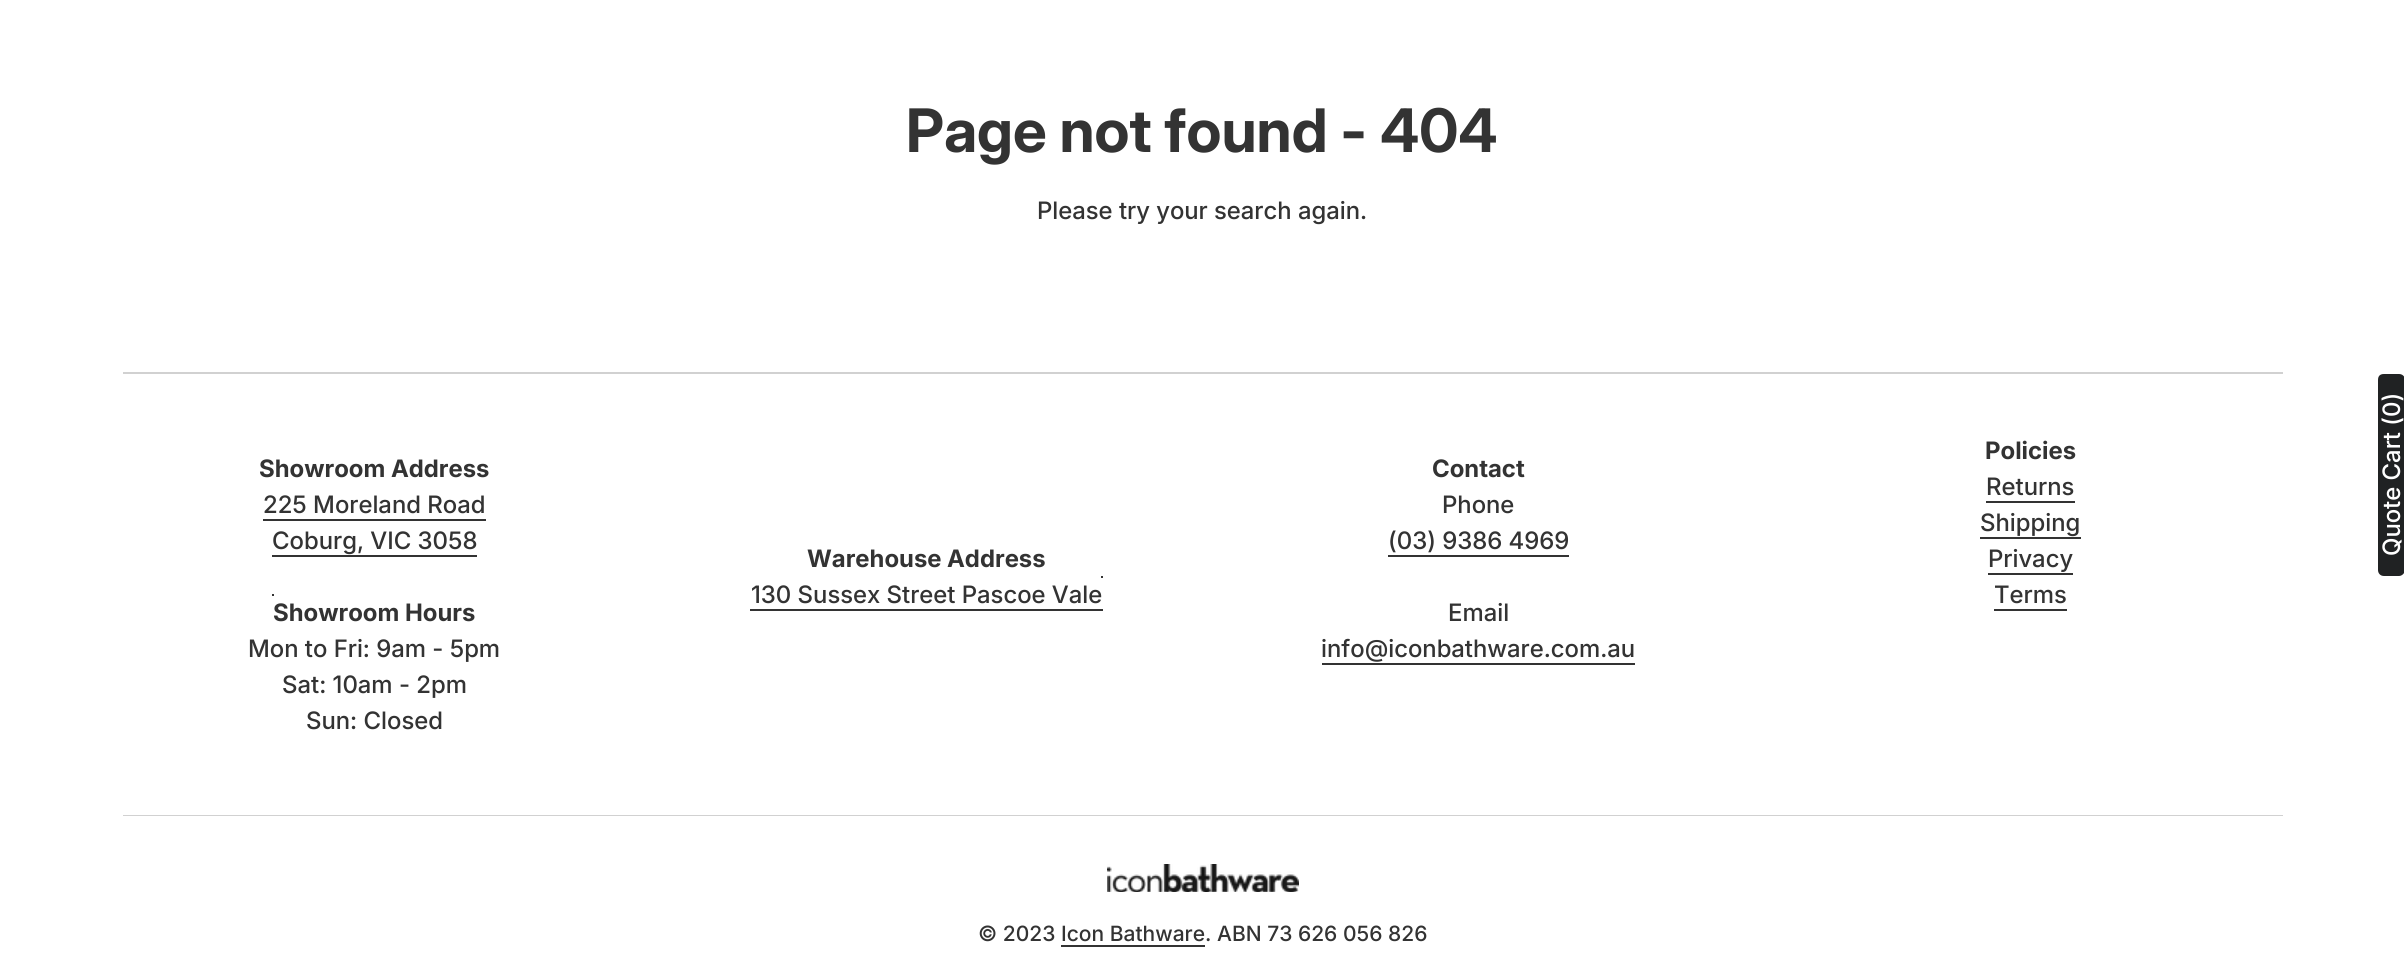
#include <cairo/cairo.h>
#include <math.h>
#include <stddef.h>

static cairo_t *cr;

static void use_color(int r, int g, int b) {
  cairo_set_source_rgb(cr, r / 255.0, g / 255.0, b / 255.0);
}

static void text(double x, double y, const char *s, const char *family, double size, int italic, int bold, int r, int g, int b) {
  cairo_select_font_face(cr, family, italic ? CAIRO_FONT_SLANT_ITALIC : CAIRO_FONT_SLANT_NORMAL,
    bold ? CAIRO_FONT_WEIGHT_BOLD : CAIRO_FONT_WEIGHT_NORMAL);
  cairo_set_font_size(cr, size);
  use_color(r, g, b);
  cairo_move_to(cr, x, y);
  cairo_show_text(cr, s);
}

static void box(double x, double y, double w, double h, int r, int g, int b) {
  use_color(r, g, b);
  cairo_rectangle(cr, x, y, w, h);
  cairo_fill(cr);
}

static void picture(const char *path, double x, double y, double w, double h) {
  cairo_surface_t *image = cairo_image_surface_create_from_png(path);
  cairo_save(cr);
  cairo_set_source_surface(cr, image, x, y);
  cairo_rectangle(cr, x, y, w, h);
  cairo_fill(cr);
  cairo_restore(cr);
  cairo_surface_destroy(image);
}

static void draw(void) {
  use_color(255, 255, 255);
  cairo_paint(cr);
  box(123, 372, 2160, 2, 209, 209, 209);
  box(263, 519, 223, 2, 51, 51, 51);
  box(272, 555, 205, 2, 51, 51, 51);
  box(272, 594, 2, 2, 51, 51, 51);
  box(750, 609, 353, 2, 51, 51, 51);
  box(1101, 576, 2, 2, 51, 51, 51);
  box(1388, 555, 181, 2, 51, 51, 51);
  box(1322, 663, 313, 2, 51, 51, 51);
  box(1986, 501, 89, 2, 51, 51, 51);
  box(1980, 537, 101, 2, 51, 51, 51);
  box(1988, 573, 85, 2, 51, 51, 51);
  box(1994, 609, 73, 2, 51, 51, 51);
  box(123, 815, 2160, 1, 209, 209, 209);
  picture("img_01.png", 1107, 864, 192, 28);
  box(1061, 945, 144, 2, 51, 51, 51);
  use_color(32, 34, 35);
  cairo_new_path(cr);
  cairo_move_to(cr, 2378, 570);
  cairo_line_to(cr, 2378, 380);
  cairo_curve_to(cr, 2378, 376, 2380, 374, 2384, 374);
  cairo_line_to(cr, 2399, 374);
  cairo_curve_to(cr, 2402, 374, 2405, 376, 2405, 380);
  cairo_line_to(cr, 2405, 570);
  cairo_curve_to(cr, 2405, 573, 2402, 576, 2399, 576);
  cairo_line_to(cr, 2384, 576);
  cairo_curve_to(cr, 2380, 576, 2378, 573, 2378, 570);
  cairo_close_path(cr);
  cairo_fill(cr);
  text(906, 152, "Page not found - 404", "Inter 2", 60, 0, 1, 51, 51, 51);
  text(1037, 219, "Please try your search again.", "Inter 2 Medium", 24, 0, 0, 51, 51, 51);
  text(259, 477, "Showroom Address", "Inter", 24, 0, 1, 51, 51, 51);
  text(263, 513, "225 Moreland Road", "Inter 2 Medium", 24, 0, 0, 51, 51, 51);
  text(272, 549, "Coburg, VIC 3058", "Inter 2 Medium", 24, 0, 0, 51, 51, 51);
  text(273, 621, "Showroom Hours", "Inter", 24, 0, 1, 51, 51, 51);
  text(248, 657, "Mon to Fri: 9am - 5pm", "Inter 2 Medium", 24, 0, 0, 51, 51, 51);
  text(282, 693, "Sat: 10am - 2pm", "Inter 2 Medium", 24, 0, 0, 51, 51, 51);
  text(306, 729, "Sun: Closed", "Inter 2 Medium", 24, 0, 0, 51, 51, 51);
  text(807, 567, "Warehouse Address", "Inter", 24, 0, 1, 51, 51, 51);
  text(751, 603, "130 Sussex Street Pascoe Vale", "Inter 2 Medium", 24, 0, 0, 51, 51, 51);
  text(1432, 477, "Contact", "Inter", 24, 0, 1, 51, 51, 51);
  text(1442, 513, "Phone", "Inter 2 Medium", 24, 0, 0, 51, 51, 51);
  text(1388, 549, "(03) 9386 4969", "Inter 2 Medium", 24, 0, 0, 51, 51, 51);
  text(1448, 621, "Email", "Inter 2 Medium", 24, 0, 0, 51, 51, 51);
  text(1321, 657, "info@iconbathware.com.au", "Inter 2 Medium", 24, 0, 0, 51, 51, 51);
  text(1985, 459, "Policies", "Inter", 24, 0, 1, 51, 51, 51);
  text(1986, 495, "Returns", "Inter 2 Medium", 24, 0, 0, 51, 51, 51);
  text(1980, 531, "Shipping", "Inter 2 Medium", 24, 0, 0, 51, 51, 51);
  text(1988, 567, "Privacy", "Inter 2 Medium", 24, 0, 0, 51, 51, 51);
  text(1994, 603, "Terms", "Inter 2 Medium", 24, 0, 0, 51, 51, 51);
  text(978, 941, "© 2023 Icon Bathware. ABN 73 626 056 826", "Inter Medium", 21, 0, 0, 51, 51, 51);
  cairo_save(cr);
  cairo_translate(cr, 2400, 556);
  cairo_rotate(cr, -90 * M_PI / 180);
  text(0, 0, "Quote Cart (0)", "Inter 2 Medium", 24, 0, 0, 255, 255, 255);
  cairo_restore(cr);
}

int main(void) {
  cairo_surface_t *surface = cairo_image_surface_create(CAIRO_FORMAT_RGB24, 2404, 971);
  cr = cairo_create(surface);
  cairo_font_options_t *options = cairo_font_options_create();
  cairo_font_options_set_hint_metrics(options, CAIRO_HINT_METRICS_OFF);
  cairo_font_options_set_hint_style(options, CAIRO_HINT_STYLE_NONE);
  cairo_set_font_options(cr, options);
  cairo_set_miter_limit(cr, 4);
  draw();
  cairo_surface_write_to_png(surface, "out.png");
  cairo_font_options_destroy(options);
  cairo_destroy(cr);
  cairo_surface_destroy(surface);
  return 0;
}
